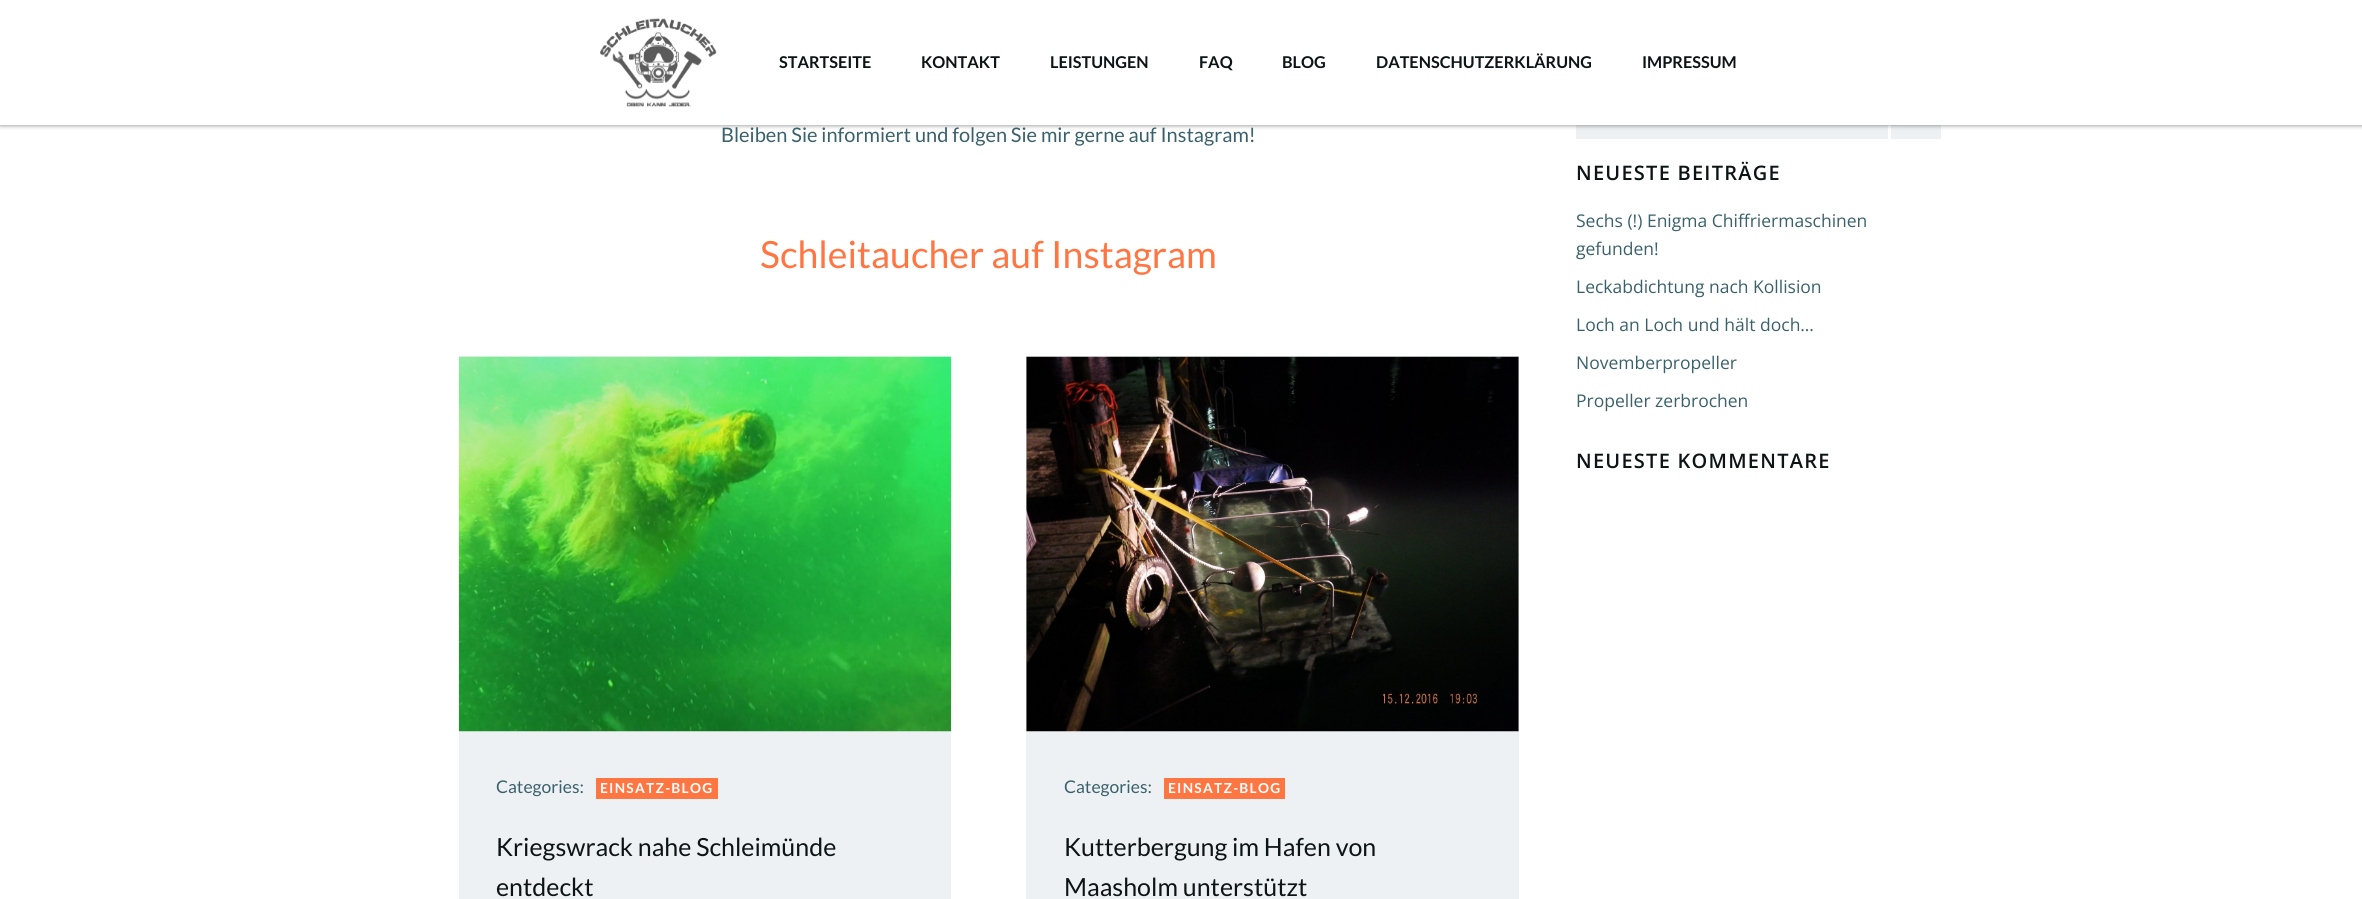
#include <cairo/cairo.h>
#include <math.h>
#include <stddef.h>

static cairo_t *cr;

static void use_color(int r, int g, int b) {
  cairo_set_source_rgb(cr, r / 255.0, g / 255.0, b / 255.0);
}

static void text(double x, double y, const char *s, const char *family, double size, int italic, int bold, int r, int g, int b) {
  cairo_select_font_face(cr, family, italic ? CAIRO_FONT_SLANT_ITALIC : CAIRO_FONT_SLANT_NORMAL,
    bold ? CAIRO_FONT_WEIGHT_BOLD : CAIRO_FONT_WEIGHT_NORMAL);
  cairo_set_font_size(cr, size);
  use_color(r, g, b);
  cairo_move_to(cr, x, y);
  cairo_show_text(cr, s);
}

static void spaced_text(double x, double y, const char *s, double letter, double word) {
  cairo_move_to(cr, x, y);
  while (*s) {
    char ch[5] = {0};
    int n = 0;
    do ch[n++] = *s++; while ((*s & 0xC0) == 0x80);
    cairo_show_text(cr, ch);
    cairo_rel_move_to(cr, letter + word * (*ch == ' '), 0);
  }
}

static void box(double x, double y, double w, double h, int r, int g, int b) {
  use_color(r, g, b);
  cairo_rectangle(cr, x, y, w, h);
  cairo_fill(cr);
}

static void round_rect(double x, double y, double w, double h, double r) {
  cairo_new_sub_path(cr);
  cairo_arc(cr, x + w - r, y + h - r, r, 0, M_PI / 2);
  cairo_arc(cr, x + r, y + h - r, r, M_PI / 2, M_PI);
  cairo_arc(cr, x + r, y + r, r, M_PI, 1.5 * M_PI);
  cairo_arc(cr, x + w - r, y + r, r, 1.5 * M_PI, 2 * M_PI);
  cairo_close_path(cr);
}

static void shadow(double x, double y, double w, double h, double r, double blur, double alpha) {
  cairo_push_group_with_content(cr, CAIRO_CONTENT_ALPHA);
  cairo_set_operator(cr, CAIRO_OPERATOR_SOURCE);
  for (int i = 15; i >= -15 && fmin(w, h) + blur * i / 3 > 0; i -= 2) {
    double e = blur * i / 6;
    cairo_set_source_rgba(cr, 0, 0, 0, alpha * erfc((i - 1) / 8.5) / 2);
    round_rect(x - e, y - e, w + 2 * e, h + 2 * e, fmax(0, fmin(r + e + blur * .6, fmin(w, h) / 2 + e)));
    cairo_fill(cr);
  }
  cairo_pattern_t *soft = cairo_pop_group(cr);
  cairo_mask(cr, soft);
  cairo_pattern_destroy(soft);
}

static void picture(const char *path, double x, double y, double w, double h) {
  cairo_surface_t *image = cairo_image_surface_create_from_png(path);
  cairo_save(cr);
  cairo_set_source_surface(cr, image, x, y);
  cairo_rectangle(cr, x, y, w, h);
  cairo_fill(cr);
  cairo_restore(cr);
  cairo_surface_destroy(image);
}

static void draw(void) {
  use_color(255, 255, 255);
  cairo_paint(cr);
  box(1576, 125, 312, 14, 237, 241, 243);
  box(1891, 125, 50, 14, 237, 241, 243);
  use_color(0, 0, 0);
  shadow(0, 0, 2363, 125, 0, 2.5, 0.5);
  box(0, 0, 2362, 125, 255, 255, 255);
  picture("img_01.png", 600, 18, 117, 89);
  box(459, 356, 492, 543, 237, 241, 243);
  picture("img_02.png", 458, 356, 494, 376);
  box(596, 778, 122, 21, 255, 118, 67);
  box(1026, 356, 493, 543, 237, 241, 243);
  picture("img_03.png", 1026, 356, 493, 376);
  box(1164, 778, 121, 21, 255, 118, 67);
  text(779, 68, "STARTSEITE", "Lato", 16.25, 0, 1, 12, 20, 22);
  text(921, 68, "KONTAKT", "Lato", 16.25, 0, 1, 12, 20, 22);
  text(1050, 68, "LEISTUNGEN", "Lato", 16.25, 0, 1, 12, 20, 22);
  text(1199, 68, "FAQ", "Lato", 16.25, 0, 1, 12, 20, 22);
  text(1282, 68, "BLOG", "Lato", 16.25, 0, 1, 12, 20, 22);
  text(1376, 68, "DATENSCHUTZERKLÄRUNG", "Lato", 16.25, 0, 1, 12, 20, 22);
  text(1642, 68, "IMPRESSUM", "Lato", 16.25, 0, 1, 12, 20, 22);
  text(721, 142, "Bleiben Sie informiert und folgen Sie mir gerne auf Instagram!", "Lato", 20, 0, 0, 58, 97, 107);
  text(760, 268, "Schleitaucher auf Instagram", "Lato", 37.5, 0, 0, 255, 118, 67);
  text(496, 793, "Categories:", "Lato", 17.5, 0, 0, 58, 97, 107);
  cairo_select_font_face(cr, "Lato", CAIRO_FONT_SLANT_NORMAL, CAIRO_FONT_WEIGHT_BOLD);
  cairo_set_font_size(cr, 13.75);
  use_color(255, 255, 255);
  spaced_text(600, 793, "EINSATZ-BLOG", 1.25, 0);
  text(496, 856, "Kriegswrack nahe Schleimünde", "Lato", 25, 0, 0, 12, 20, 22);
  text(496, 896, "entdeckt", "Lato", 25, 0, 0, 12, 20, 22);
  text(1064, 793, "Categories:", "Lato", 17.5, 0, 0, 58, 97, 107);
  cairo_select_font_face(cr, "Lato", CAIRO_FONT_SLANT_NORMAL, CAIRO_FONT_WEIGHT_BOLD);
  cairo_set_font_size(cr, 13.75);
  use_color(255, 255, 255);
  spaced_text(1168, 793, "EINSATZ-BLOG", 1.25, 0);
  text(1064, 856, "Kutterbergung im Hafen von", "Lato", 25, 0, 0, 12, 20, 22);
  text(1064, 896, "Maasholm unterstützt", "Lato", 25, 0, 0, 12, 20, 22);
  cairo_select_font_face(cr, "Open Sans SemiBold", CAIRO_FONT_SLANT_NORMAL, CAIRO_FONT_WEIGHT_NORMAL);
  cairo_set_font_size(cr, 20);
  spaced_text(1576, 180, "NEUESTE BEITRÄGE", 1.25, 0);
  text(1576, 227, "Sechs (!) Enigma Chiffriermaschinen", "Open Sans", 17.5, 0, 0, 58, 97, 107);
  text(1576, 255, "gefunden!", "Open Sans", 17.5, 0, 0, 58, 97, 107);
  text(1576, 293, "Leckabdichtung nach Kollision", "Open Sans", 17.5, 0, 0, 58, 97, 107);
  text(1576, 331, "Loch an Loch und hält doch…", "Open Sans", 17.5, 0, 0, 58, 97, 107);
  text(1576, 369, "Novemberpropeller", "Open Sans", 17.5, 0, 0, 58, 97, 107);
  text(1576, 407, "Propeller zerbrochen", "Open Sans", 17.5, 0, 0, 58, 97, 107);
  cairo_select_font_face(cr, "Open Sans SemiBold", CAIRO_FONT_SLANT_NORMAL, CAIRO_FONT_WEIGHT_NORMAL);
  cairo_set_font_size(cr, 20);
  use_color(12, 20, 22);
  spaced_text(1576, 468, "NEUESTE KOMMENTARE", 1.25, 0);
}

int main(void) {
  cairo_surface_t *surface = cairo_image_surface_create(CAIRO_FORMAT_RGB24, 2362, 899);
  cr = cairo_create(surface);
  cairo_font_options_t *options = cairo_font_options_create();
  cairo_font_options_set_hint_metrics(options, CAIRO_HINT_METRICS_OFF);
  cairo_font_options_set_hint_style(options, CAIRO_HINT_STYLE_NONE);
  cairo_set_font_options(cr, options);
  cairo_set_miter_limit(cr, 4);
  draw();
  cairo_surface_write_to_png(surface, "out.png");
  cairo_font_options_destroy(options);
  cairo_destroy(cr);
  cairo_surface_destroy(surface);
  return 0;
}
